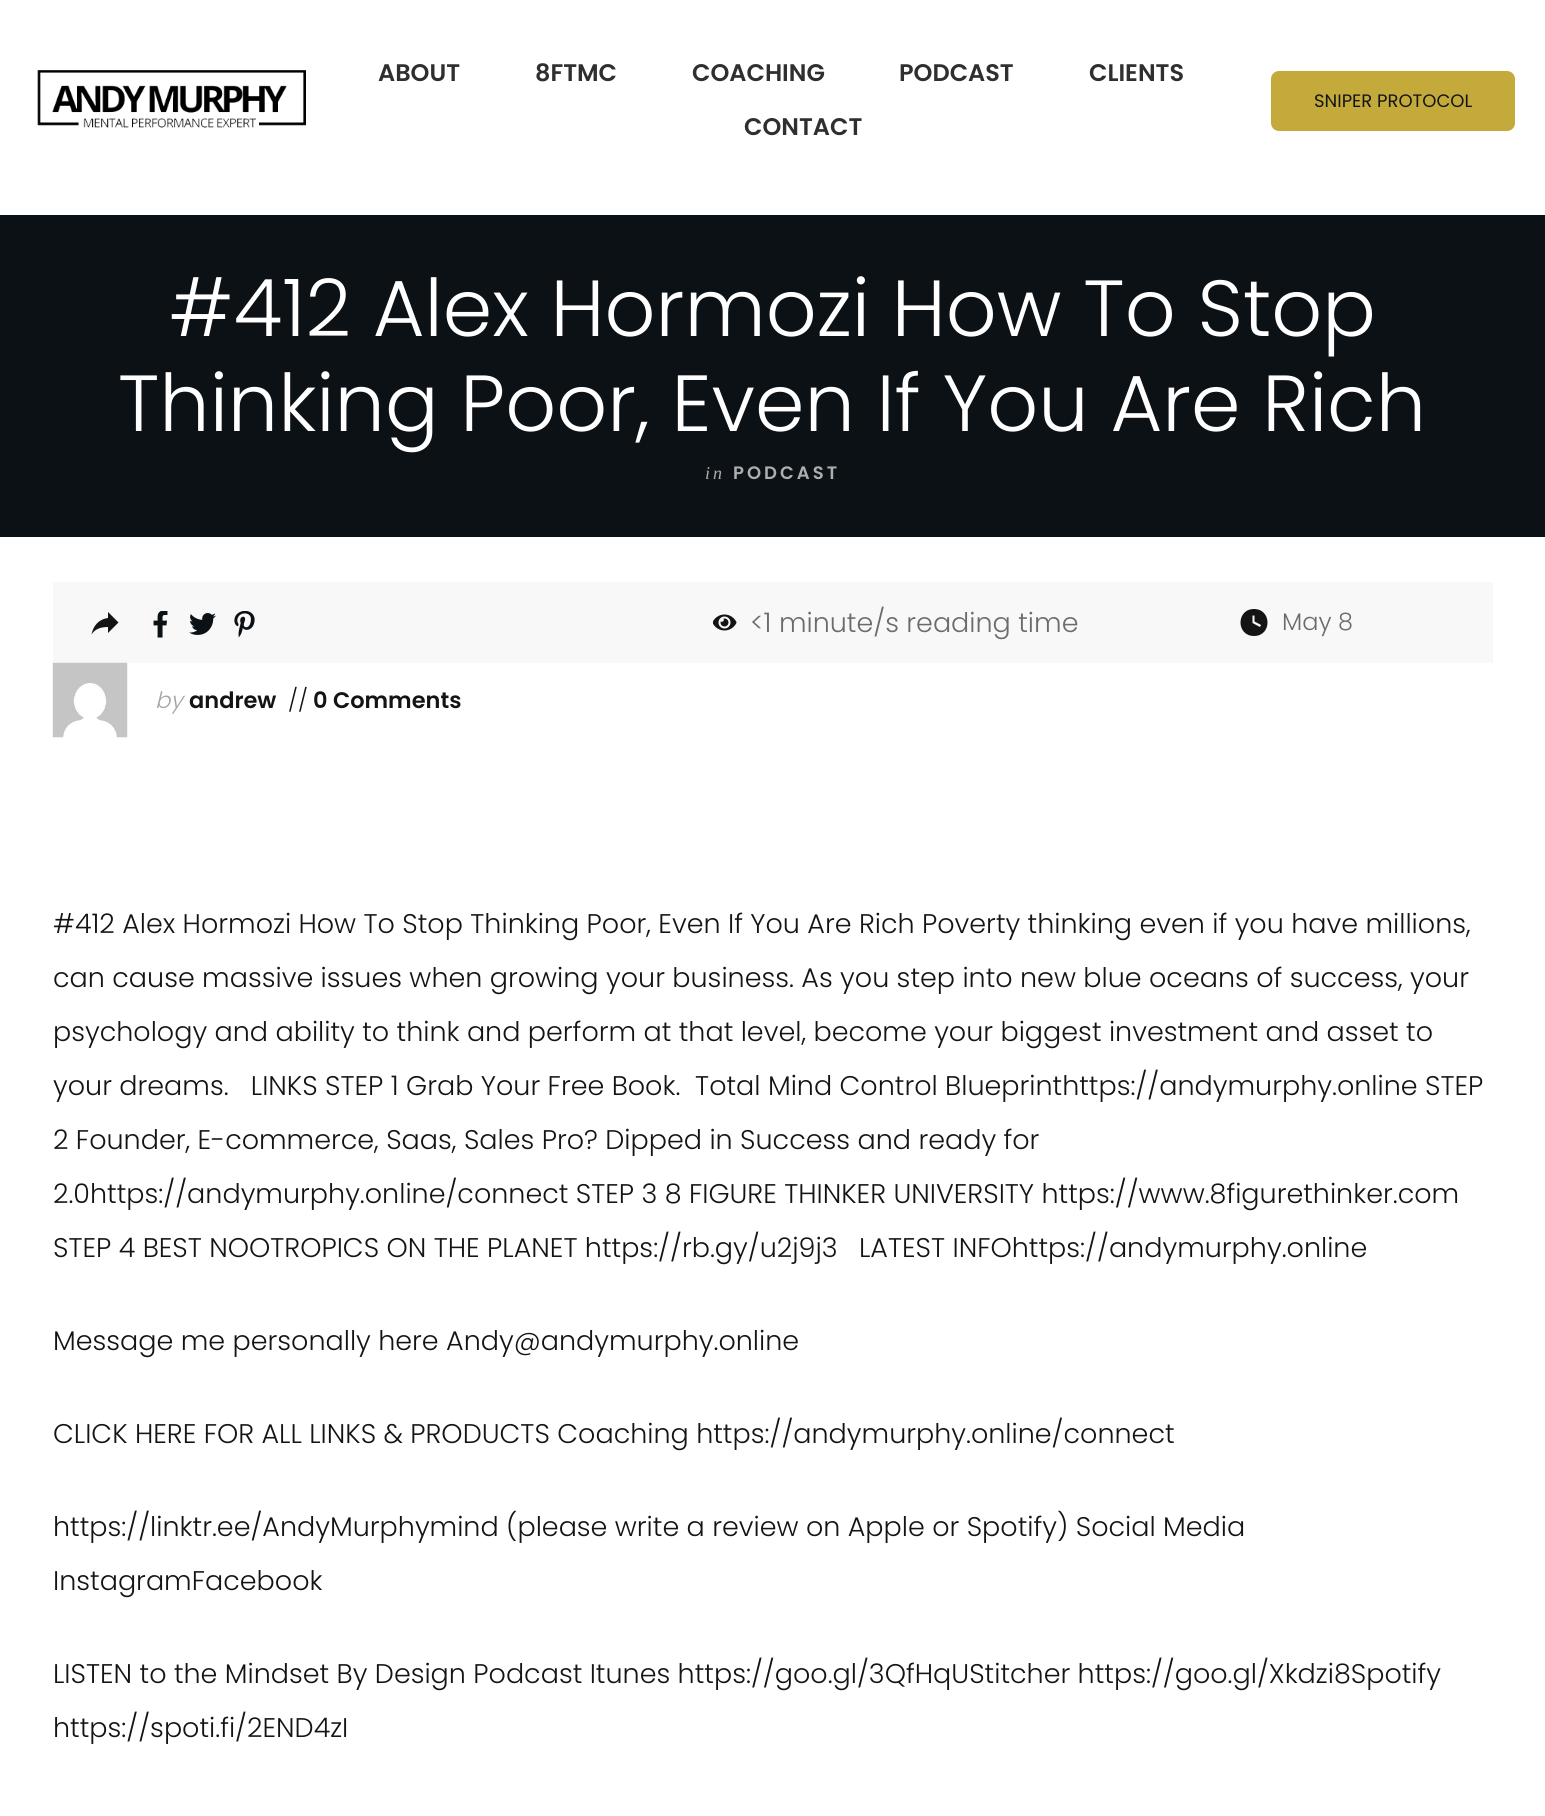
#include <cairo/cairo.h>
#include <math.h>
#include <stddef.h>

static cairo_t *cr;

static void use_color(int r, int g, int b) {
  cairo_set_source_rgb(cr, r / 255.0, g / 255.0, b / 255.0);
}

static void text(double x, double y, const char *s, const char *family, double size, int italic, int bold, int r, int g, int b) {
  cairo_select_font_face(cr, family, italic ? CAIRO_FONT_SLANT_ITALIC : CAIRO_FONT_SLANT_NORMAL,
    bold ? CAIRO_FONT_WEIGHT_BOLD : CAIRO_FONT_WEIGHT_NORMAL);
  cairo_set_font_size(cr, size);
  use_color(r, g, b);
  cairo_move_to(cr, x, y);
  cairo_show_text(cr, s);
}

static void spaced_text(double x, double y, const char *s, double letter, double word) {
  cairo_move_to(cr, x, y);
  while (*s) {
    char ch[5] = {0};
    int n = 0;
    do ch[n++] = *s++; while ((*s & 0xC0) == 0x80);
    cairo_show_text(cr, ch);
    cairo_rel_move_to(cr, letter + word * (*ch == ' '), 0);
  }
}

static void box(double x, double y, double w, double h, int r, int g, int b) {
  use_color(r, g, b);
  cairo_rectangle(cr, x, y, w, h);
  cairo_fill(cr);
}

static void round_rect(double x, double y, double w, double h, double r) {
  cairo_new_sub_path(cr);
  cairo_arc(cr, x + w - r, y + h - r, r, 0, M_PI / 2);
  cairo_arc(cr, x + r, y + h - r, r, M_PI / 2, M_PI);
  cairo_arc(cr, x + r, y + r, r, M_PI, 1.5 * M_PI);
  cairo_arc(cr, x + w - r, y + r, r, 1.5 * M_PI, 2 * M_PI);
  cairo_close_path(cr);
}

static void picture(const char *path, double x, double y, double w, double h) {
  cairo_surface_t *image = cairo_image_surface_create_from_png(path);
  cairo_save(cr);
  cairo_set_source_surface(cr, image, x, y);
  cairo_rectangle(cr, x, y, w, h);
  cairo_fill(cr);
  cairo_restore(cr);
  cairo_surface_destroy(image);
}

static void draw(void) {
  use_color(255, 255, 255);
  cairo_paint(cr);
  picture("img_01.png", 37, 70, 269, 58);
  use_color(196, 170, 59);
  round_rect(1271, 71, 244, 60, 8);
  cairo_fill(cr);
  box(0, 215, 1545, 322, 12, 17, 21);
  box(53, 582, 1440, 81, 248, 248, 248);
  use_color(20, 20, 20);
  cairo_new_path(cr);
  cairo_move_to(cr, 118.5, 622.5);
  cairo_line_to(cr, 108, 612);
  cairo_line_to(cr, 108, 618);
  cairo_curve_to(cr, 97.5, 619.5, 93, 627, 91.5, 634.5);
  cairo_curve_to(cr, 95, 629, 100.5, 627, 108, 627);
  cairo_line_to(cr, 108, 633);
  cairo_close_path(cr);
  cairo_fill(cr);
  picture("img_02.png", 153, 611, 15, 27);
  picture("img_03.png", 189, 613, 27, 22);
  picture("img_04.png", 234, 611, 21, 27);
  picture("img_05.png", 713, 614, 24, 17);
  cairo_new_path(cr);
  cairo_move_to(cr, 1254, 609);
  cairo_curve_to(cr, 1236, 609, 1236, 636, 1254, 636);
  cairo_curve_to(cr, 1272, 636, 1272, 609, 1254, 609);
  cairo_move_to(cr, 1260, 627);
  cairo_line_to(cr, 1252.5, 623);
  cairo_line_to(cr, 1252.5, 615.5);
  cairo_line_to(cr, 1254.5, 615.5);
  cairo_line_to(cr, 1254.5, 621.5);
  cairo_line_to(cr, 1261, 625);
  cairo_close_path(cr);
  cairo_fill(cr);
  picture("img_06.png", 52, 662, 76, 76);
  text(378, 81, "ABOUT", "Poppins SemiBold", 24, 0, 0, 47, 47, 47);
  text(535, 81, "8FTMC", "Poppins SemiBold", 24, 0, 0, 47, 47, 47);
  text(692, 81, "COACHING", "Poppins SemiBold", 24, 0, 0, 47, 47, 47);
  text(899, 81, "PODCAST", "Poppins SemiBold", 24, 0, 0, 47, 47, 47);
  text(1089, 81, "CLIENTS", "Poppins SemiBold", 24, 0, 0, 47, 47, 47);
  text(744, 135, "CONTACT", "Poppins SemiBold", 24, 0, 0, 47, 47, 47);
  text(1314, 107, "SNIPER PROTOCOL", "Poppins", 18, 0, 0, 20, 20, 20);
  text(169, 336, "#412 Alex Hormozi How To Stop", "Poppins Light", 79.5, 0, 0, 255, 255, 255);
  text(118, 431, "Thinking Poor, Even If You Are Rich", "Poppins Light", 79.5, 0, 0, 255, 255, 255);
  cairo_select_font_face(cr, "Liberation Serif", CAIRO_FONT_SLANT_ITALIC, CAIRO_FONT_WEIGHT_NORMAL);
  cairo_set_font_size(cr, 18);
  use_color(172, 174, 175);
  spaced_text(705, 479, "in", 3, 0);
  cairo_select_font_face(cr, "Poppins SemiBold", CAIRO_FONT_SLANT_NORMAL, CAIRO_FONT_WEIGHT_NORMAL);
  spaced_text(733, 479, "PODCAST", 3, 0);
  text(750, 632, "<1 minute/s reading time", "Poppins Light", 27, 0, 0, 106, 107, 108);
  text(1282, 630, "May 8", "Poppins Light", 24, 0, 0, 106, 107, 108);
  text(155, 708, "by", "Poppins Light", 22.5, 1, 0, 166, 166, 166);
  text(189, 708, "andrew", "Poppins SemiBold", 22.5, 0, 0, 20, 20, 20);
  text(288, 708, "//", "Poppins Light", 22.5, 0, 0, 20, 20, 20);
  text(313, 708, "0 Comments", "Poppins SemiBold", 22.5, 0, 0, 20, 20, 20);
  text(53, 933, "#412 Alex Hormozi How To Stop Thinking Poor, Even If You Are Rich Poverty thinking even if you have millions,", "Poppins Light", 27, 0, 0, 20, 20, 20);
  text(53, 987, "can cause massive issues when growing your business. As you step into new blue oceans of success, your", "Poppins Light", 27, 0, 0, 20, 20, 20);
  text(53, 1041, "psychology and ability to think and perform at that level, become your biggest investment and asset to", "Poppins Light", 27, 0, 0, 20, 20, 20);
  text(53, 1095, "your dreams.   LINKS STEP 1 Grab Your Free Book.  Total Mind Control Blueprinthttps://andymurphy.online STEP", "Poppins Light", 27, 0, 0, 20, 20, 20);
  text(53, 1149, "2 Founder, E-commerce, Saas, Sales Pro? Dipped in Success and ready for", "Poppins Light", 27, 0, 0, 20, 20, 20);
  text(53, 1203, "2.0https://andymurphy.online/connect STEP 3 8 FIGURE THINKER UNIVERSITY https://www.8figurethinker.com", "Poppins Light", 27, 0, 0, 20, 20, 20);
  text(53, 1257, "STEP 4 BEST NOOTROPICS ON THE PLANET https://rb.gy/u2j9j3", "Poppins Light", 27, 0, 0, 20, 20, 20);
  text(859, 1257, "LATEST INFOhttps://andymurphy.online", "Poppins Light", 27, 0, 0, 20, 20, 20);
  text(53, 1350, "Message me personally here Andy@andymurphy.online", "Poppins Light", 27, 0, 0, 20, 20, 20);
  text(53, 1443, "CLICK HERE FOR ALL LINKS & PRODUCTS Coaching https://andymurphy.online/connect", "Poppins Light", 27, 0, 0, 20, 20, 20);
  text(53, 1536, "https://linktr.ee/AndyMurphymind (please write a review on Apple or Spotify) Social Media", "Poppins Light", 27, 0, 0, 20, 20, 20);
  text(53, 1590, "InstagramFacebook", "Poppins Light", 27, 0, 0, 20, 20, 20);
  text(53, 1683, "LISTEN to the Mindset By Design Podcast Itunes https://goo.gl/3QfHqUStitcher https://goo.gl/Xkdzi8Spotify", "Poppins Light", 27, 0, 0, 20, 20, 20);
  text(53, 1737, "https://spoti.fi/2END4zI", "Poppins Light", 27, 0, 0, 20, 20, 20);
}

int main(void) {
  cairo_surface_t *surface = cairo_image_surface_create(CAIRO_FORMAT_RGB24, 1545, 1816);
  cr = cairo_create(surface);
  cairo_font_options_t *options = cairo_font_options_create();
  cairo_font_options_set_hint_metrics(options, CAIRO_HINT_METRICS_OFF);
  cairo_font_options_set_hint_style(options, CAIRO_HINT_STYLE_NONE);
  cairo_set_font_options(cr, options);
  cairo_set_miter_limit(cr, 4);
  draw();
  cairo_surface_write_to_png(surface, "out.png");
  cairo_font_options_destroy(options);
  cairo_destroy(cr);
  cairo_surface_destroy(surface);
  return 0;
}
